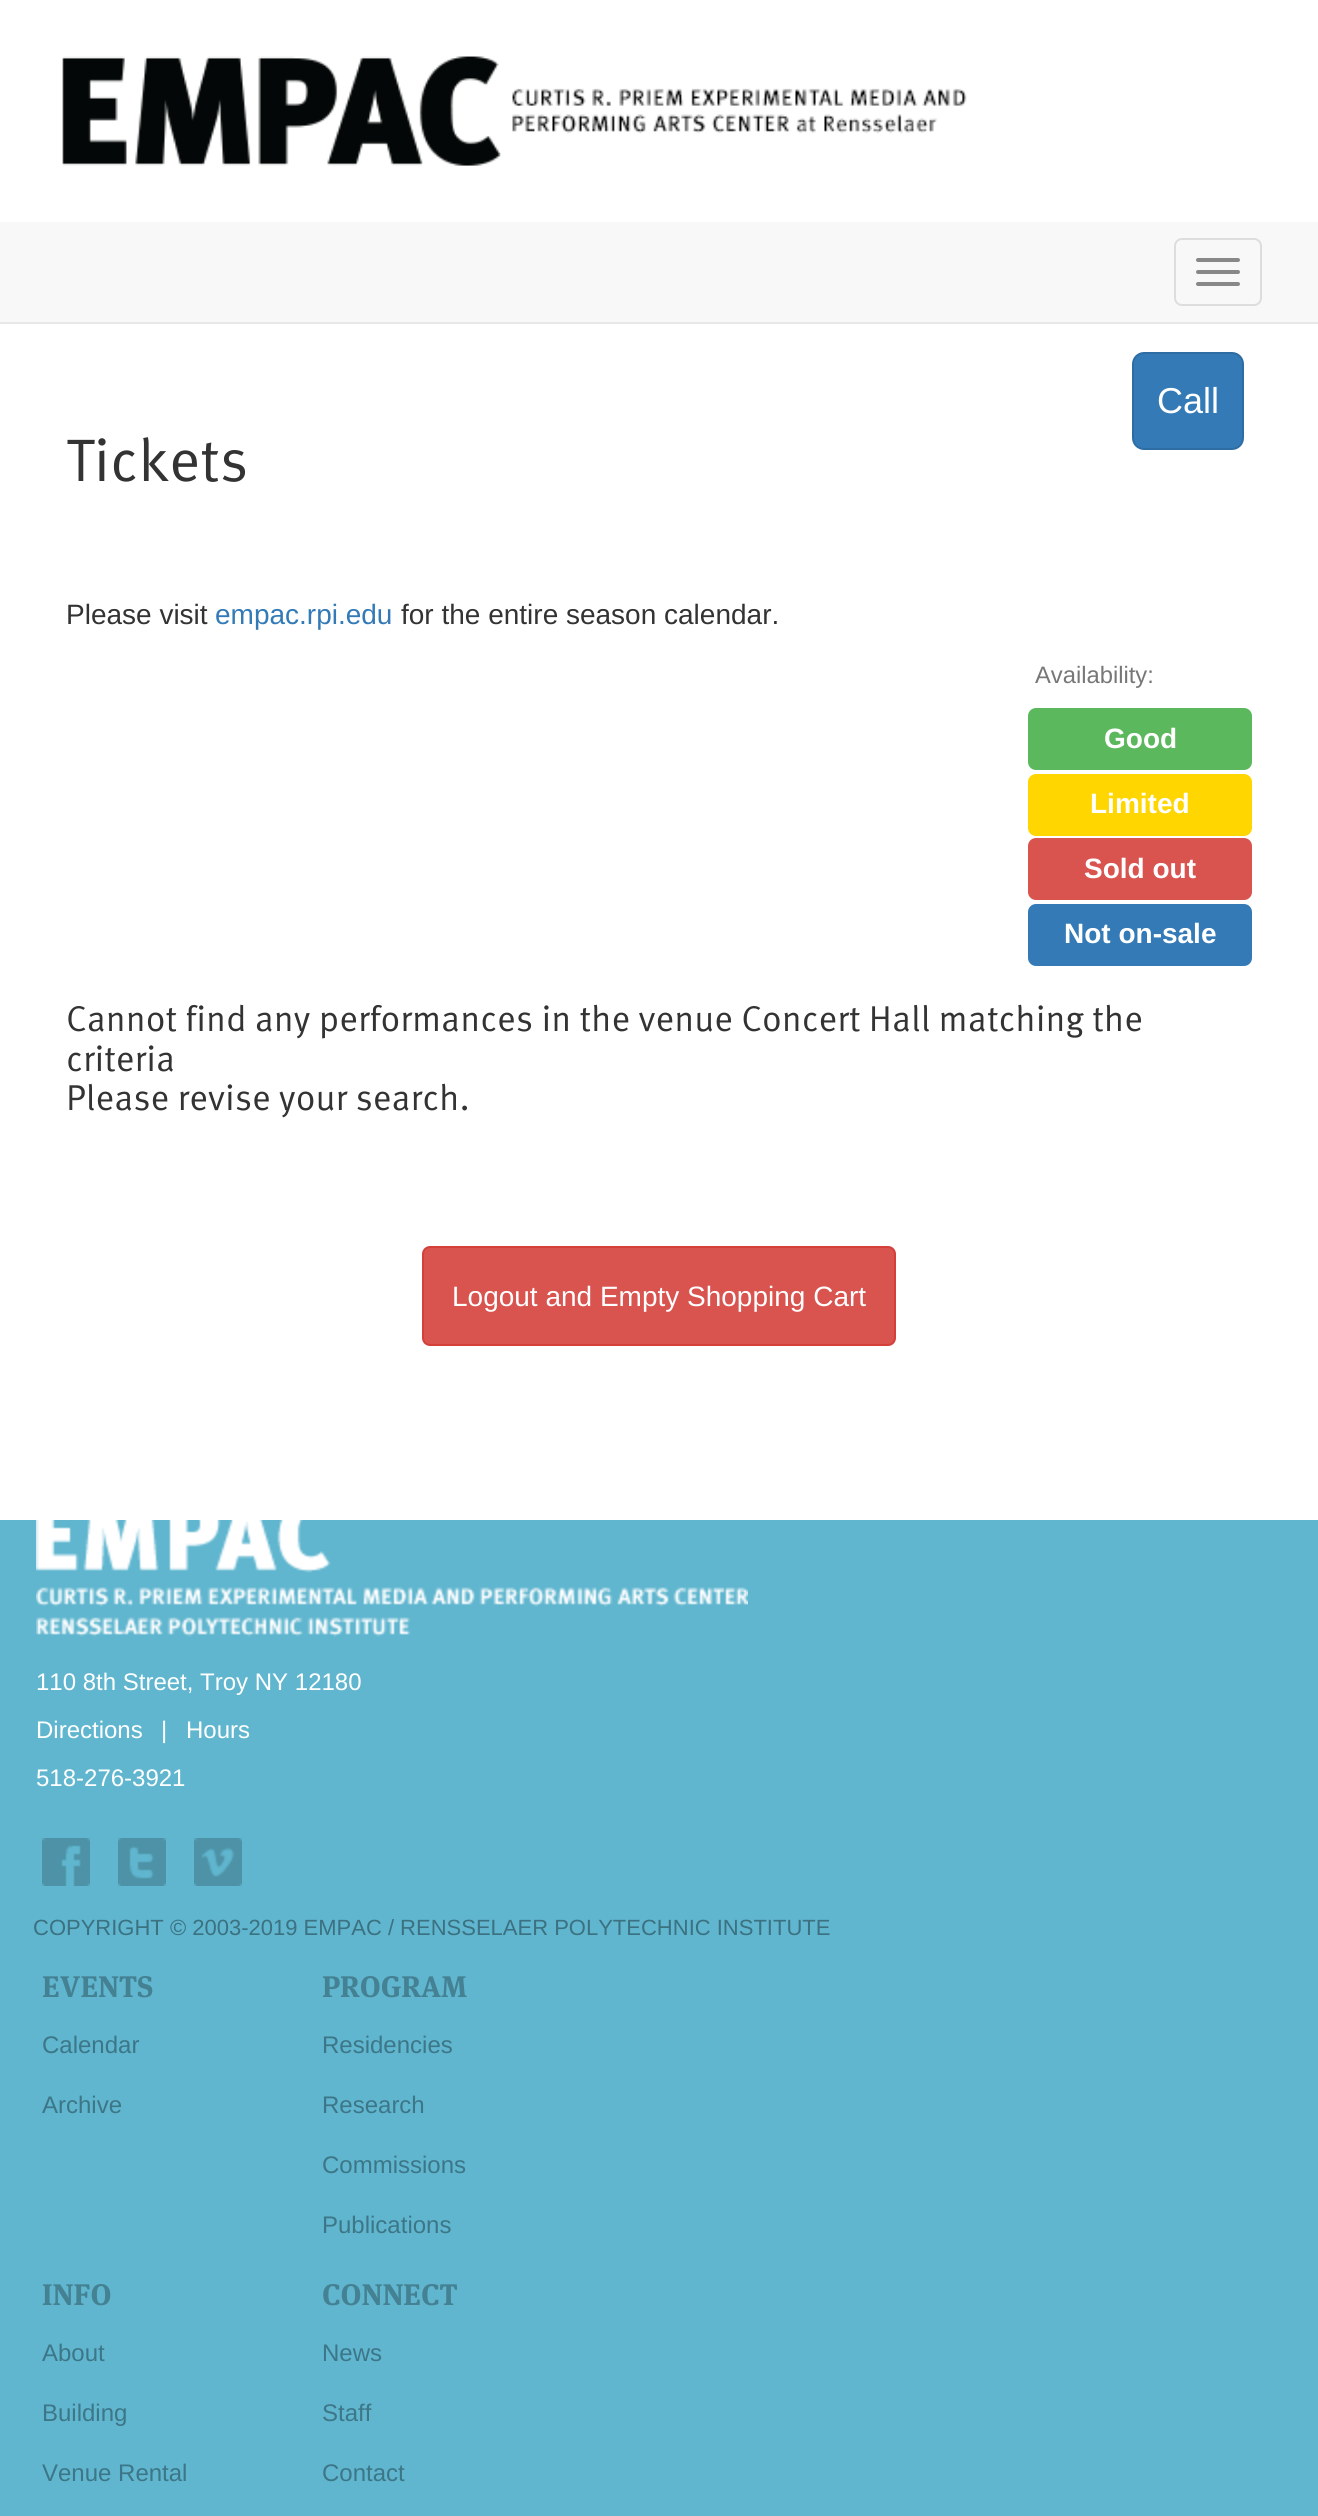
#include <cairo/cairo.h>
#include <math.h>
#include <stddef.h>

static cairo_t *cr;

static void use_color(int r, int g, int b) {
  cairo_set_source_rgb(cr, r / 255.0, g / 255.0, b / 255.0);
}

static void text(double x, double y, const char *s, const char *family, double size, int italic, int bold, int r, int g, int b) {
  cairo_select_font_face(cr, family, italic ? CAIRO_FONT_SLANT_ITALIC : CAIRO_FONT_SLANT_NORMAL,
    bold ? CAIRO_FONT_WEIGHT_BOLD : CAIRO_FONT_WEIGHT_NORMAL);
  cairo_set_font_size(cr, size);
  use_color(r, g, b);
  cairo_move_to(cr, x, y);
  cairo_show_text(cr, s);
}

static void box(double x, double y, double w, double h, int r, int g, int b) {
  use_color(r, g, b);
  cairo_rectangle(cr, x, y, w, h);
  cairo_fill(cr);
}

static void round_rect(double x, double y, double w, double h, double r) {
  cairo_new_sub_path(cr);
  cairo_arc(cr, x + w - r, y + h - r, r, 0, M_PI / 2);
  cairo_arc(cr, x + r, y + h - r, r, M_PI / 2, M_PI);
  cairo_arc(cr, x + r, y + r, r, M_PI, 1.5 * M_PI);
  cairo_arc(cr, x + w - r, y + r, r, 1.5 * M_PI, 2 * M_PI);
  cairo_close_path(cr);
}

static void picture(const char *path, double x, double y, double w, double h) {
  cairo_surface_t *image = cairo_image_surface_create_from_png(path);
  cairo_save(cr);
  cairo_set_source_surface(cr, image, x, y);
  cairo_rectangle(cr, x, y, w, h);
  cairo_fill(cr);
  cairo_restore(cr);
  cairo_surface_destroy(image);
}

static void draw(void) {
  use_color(255, 255, 255);
  cairo_paint(cr);
  picture("img_01.png", 62, 56, 905, 110);
  box(0, 222, 1318, 100, 248, 248, 248);
  box(0, 322, 1318, 2, 231, 231, 231);
  round_rect(1175, 239, 86, 66, 7);
  use_color(221, 221, 221);
  cairo_stroke(cr);
  use_color(136, 136, 136);
  round_rect(1196, 258, 44, 4, 2);
  cairo_fill(cr);
  round_rect(1196, 270, 44, 4, 2);
  cairo_fill(cr);
  round_rect(1196, 282, 44, 4, 2);
  cairo_fill(cr);
  use_color(51, 122, 183);
  round_rect(1133, 353, 110, 96, 11);
  cairo_fill_preserve(cr);
  use_color(46, 109, 164);
  cairo_stroke(cr);
  use_color(92, 184, 92);
  round_rect(1028, 708, 224, 62, 8);
  cairo_fill(cr);
  use_color(255, 214, 0);
  round_rect(1028, 774, 224, 62, 8);
  cairo_fill(cr);
  use_color(217, 83, 79);
  round_rect(1028, 838, 224, 62, 8);
  cairo_fill(cr);
  use_color(51, 122, 183);
  round_rect(1028, 904, 224, 62, 8);
  cairo_fill(cr);
  use_color(217, 83, 79);
  round_rect(423, 1247, 472, 98, 7);
  cairo_fill_preserve(cr);
  use_color(212, 63, 58);
  cairo_stroke(cr);
  box(0, 1520, 1318, 996, 96, 182, 207);
  picture("img_02.png", 36, 1520, 712, 117);
  picture("img_03.png", 42, 1838, 48, 48);
  picture("img_04.png", 118, 1838, 48, 48);
  picture("img_05.png", 194, 1838, 48, 48);
  text(1157, 413, "Call", "Liberation Sans", 36, 0, 0, 255, 255, 255);
  text(66, 481, "Tickets", "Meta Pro", 60, 0, 0, 51, 51, 51);
  text(66, 624, "Please visit", "Liberation Sans", 28, 0, 0, 51, 51, 51);
  text(215, 624, "empac.rpi.edu", "Liberation Sans", 28, 0, 0, 51, 122, 183);
  text(401, 624, "for the entire season calendar.", "Liberation Sans", 28, 0, 0, 51, 51, 51);
  text(1035, 683, "Availability:", "Liberation Sans", 23.75, 0, 0, 119, 119, 119);
  text(1104, 748, "Good", "Liberation Sans", 28, 0, 1, 255, 255, 255);
  text(1090, 813, "Limited", "Liberation Sans", 28, 0, 1, 255, 255, 255);
  text(1084, 878, "Sold out", "Liberation Sans", 28, 0, 1, 255, 255, 255);
  text(1064, 943, "Not on-sale", "Liberation Sans", 28, 0, 1, 255, 255, 255);
  text(66, 1031, "Cannot find any performances in the venue Concert Hall matching the", "Meta Pro", 36, 0, 0, 51, 51, 51);
  text(66, 1071, "criteria", "Meta Pro", 36, 0, 0, 51, 51, 51);
  text(66, 1110, "Please revise your search.", "Meta Pro", 36, 0, 0, 51, 51, 51);
  text(452, 1306, "Logout and Empty Shopping Cart", "Liberation Sans", 28, 0, 0, 255, 255, 255);
  text(36, 1690, "110 8th Street, Troy NY 12180", "Liberation Sans", 24, 0, 0, 255, 255, 255);
  text(36, 1738, "Directions", "Liberation Sans", 24, 0, 0, 255, 255, 255);
  text(161, 1738, "|", "Liberation Sans", 24, 0, 0, 255, 255, 255);
  text(186, 1738, "Hours", "Liberation Sans", 24, 0, 0, 255, 255, 255);
  text(36, 1786, "518-276-3921", "Liberation Sans", 24, 0, 0, 255, 255, 255);
  text(33, 1935, "COPYRIGHT © 2003-2019 EMPAC / RENSSELAER POLYTECHNIC INSTITUTE", "Liberation Sans", 22, 0, 0, 59, 113, 128);
  text(42, 1997, "EVENTS", "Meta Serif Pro", 29.75, 0, 1, 68, 129, 147);
  text(42, 2053, "Calendar", "Liberation Sans", 24, 0, 0, 60, 118, 135);
  text(42, 2113, "Archive", "Liberation Sans", 24, 0, 0, 60, 118, 135);
  text(322, 1997, "PROGRAM", "Meta Serif Pro", 29.75, 0, 1, 68, 129, 147);
  text(322, 2053, "Residencies", "Liberation Sans", 24, 0, 0, 60, 118, 135);
  text(322, 2113, "Research", "Liberation Sans", 24, 0, 0, 60, 118, 135);
  text(322, 2173, "Commissions", "Liberation Sans", 24, 0, 0, 60, 118, 135);
  text(322, 2233, "Publications", "Liberation Sans", 24, 0, 0, 60, 118, 135);
  text(42, 2305, "INFO", "Meta Serif Pro", 29.75, 0, 1, 68, 129, 147);
  text(42, 2361, "About", "Liberation Sans", 24, 0, 0, 60, 118, 135);
  text(42, 2421, "Building", "Liberation Sans", 24, 0, 0, 60, 118, 135);
  text(42, 2481, "Venue Rental", "Liberation Sans", 24, 0, 0, 60, 118, 135);
  text(322, 2305, "CONNECT", "Meta Serif Pro", 29.75, 0, 1, 68, 129, 147);
  text(322, 2361, "News", "Liberation Sans", 24, 0, 0, 60, 118, 135);
  text(322, 2421, "Staff", "Liberation Sans", 24, 0, 0, 60, 118, 135);
  text(322, 2481, "Contact", "Liberation Sans", 24, 0, 0, 60, 118, 135);
}

int main(void) {
  cairo_surface_t *surface = cairo_image_surface_create(CAIRO_FORMAT_RGB24, 1318, 2516);
  cr = cairo_create(surface);
  cairo_font_options_t *options = cairo_font_options_create();
  cairo_font_options_set_hint_metrics(options, CAIRO_HINT_METRICS_OFF);
  cairo_font_options_set_hint_style(options, CAIRO_HINT_STYLE_NONE);
  cairo_set_font_options(cr, options);
  cairo_set_miter_limit(cr, 4);
  draw();
  cairo_surface_write_to_png(surface, "out.png");
  cairo_font_options_destroy(options);
  cairo_destroy(cr);
  cairo_surface_destroy(surface);
  return 0;
}
